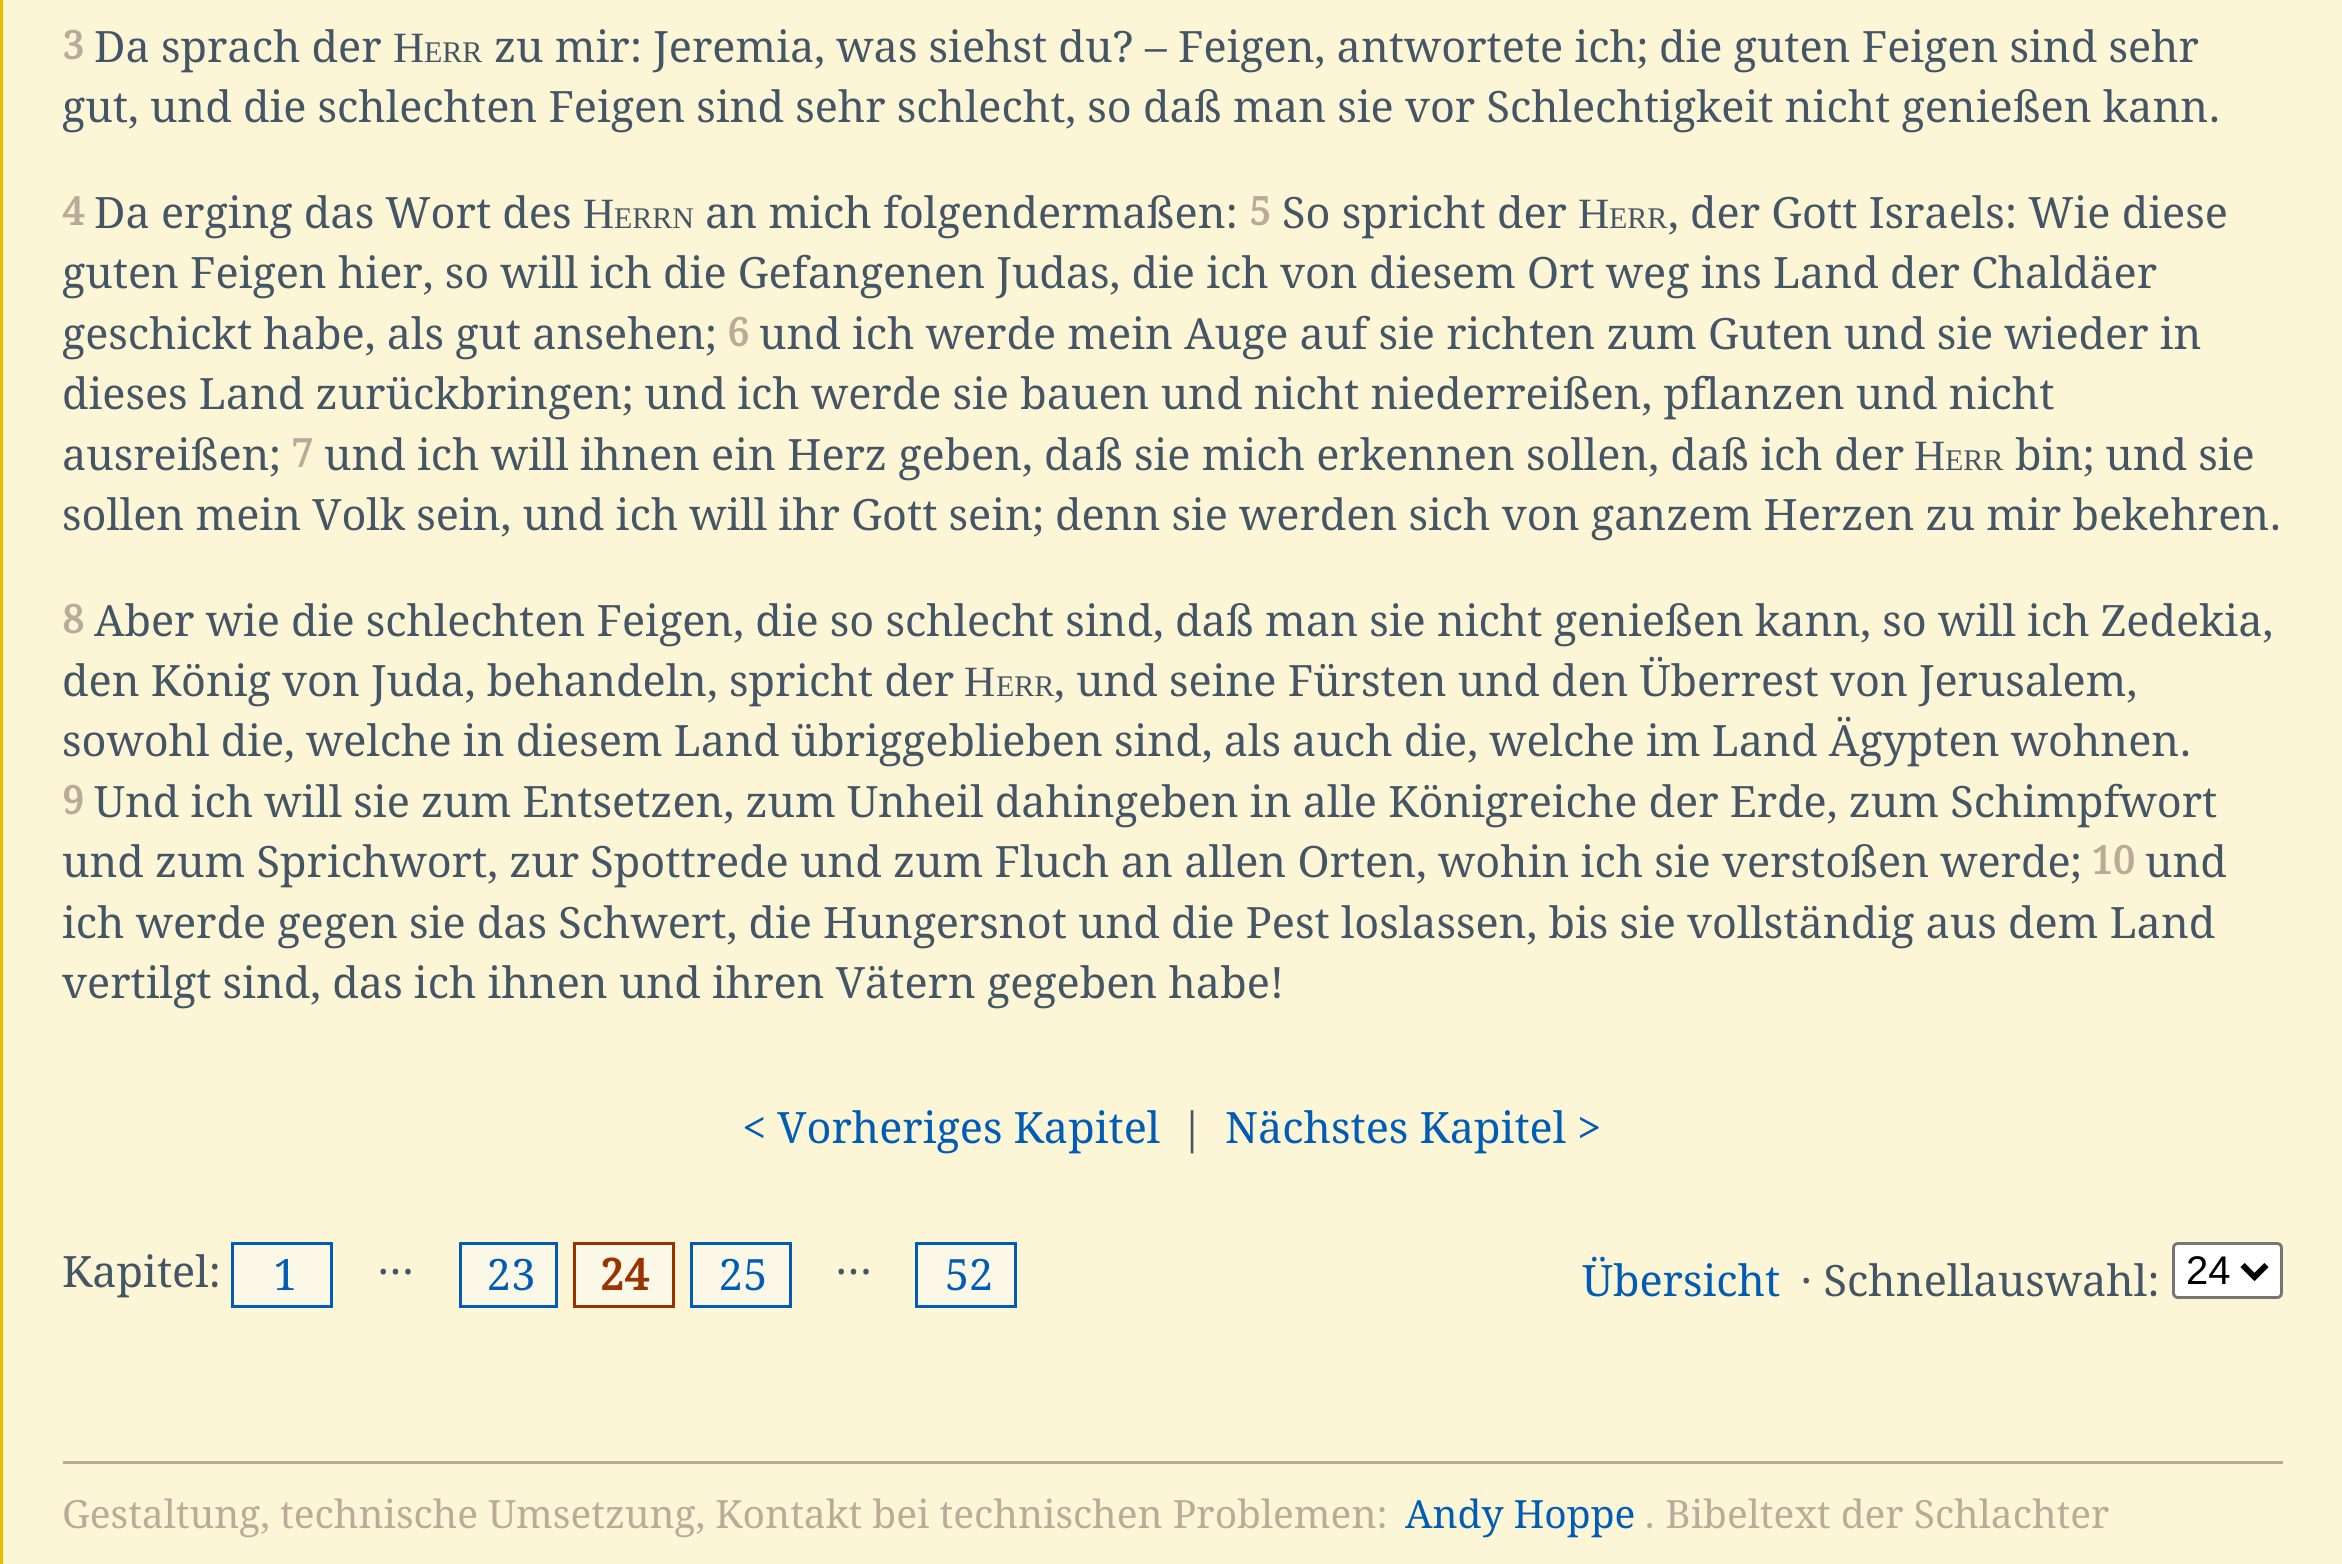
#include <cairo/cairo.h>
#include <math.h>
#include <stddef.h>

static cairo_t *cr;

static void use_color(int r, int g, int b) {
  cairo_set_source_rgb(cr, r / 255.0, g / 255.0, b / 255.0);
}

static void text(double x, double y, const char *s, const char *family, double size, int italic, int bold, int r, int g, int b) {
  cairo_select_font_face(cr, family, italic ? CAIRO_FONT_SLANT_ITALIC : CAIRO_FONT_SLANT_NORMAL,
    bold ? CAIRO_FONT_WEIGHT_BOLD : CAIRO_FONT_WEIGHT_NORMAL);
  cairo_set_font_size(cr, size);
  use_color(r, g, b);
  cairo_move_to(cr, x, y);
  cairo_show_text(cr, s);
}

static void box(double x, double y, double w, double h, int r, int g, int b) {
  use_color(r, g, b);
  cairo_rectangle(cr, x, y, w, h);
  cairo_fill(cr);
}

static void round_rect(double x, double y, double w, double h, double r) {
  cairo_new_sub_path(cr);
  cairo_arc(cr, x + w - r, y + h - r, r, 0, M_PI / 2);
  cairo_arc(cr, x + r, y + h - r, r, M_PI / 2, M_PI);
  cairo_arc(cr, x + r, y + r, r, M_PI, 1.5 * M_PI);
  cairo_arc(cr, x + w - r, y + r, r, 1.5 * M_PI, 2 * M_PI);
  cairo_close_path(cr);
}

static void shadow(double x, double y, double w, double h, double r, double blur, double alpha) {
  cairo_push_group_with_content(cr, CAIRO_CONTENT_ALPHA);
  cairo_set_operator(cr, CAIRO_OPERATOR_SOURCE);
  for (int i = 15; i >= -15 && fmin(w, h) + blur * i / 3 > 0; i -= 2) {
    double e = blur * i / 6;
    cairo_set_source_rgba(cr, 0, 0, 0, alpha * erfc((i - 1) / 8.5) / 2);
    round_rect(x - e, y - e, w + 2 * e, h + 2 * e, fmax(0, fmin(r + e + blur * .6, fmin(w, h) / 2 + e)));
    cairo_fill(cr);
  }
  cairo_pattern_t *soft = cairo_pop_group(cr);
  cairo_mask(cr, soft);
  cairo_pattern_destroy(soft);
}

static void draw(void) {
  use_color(255, 204, 0);
  cairo_paint(cr);
  use_color(0, 0, 0);
  shadow(-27, -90, 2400, 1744, 0, 30, 0.1);
  box(3, 0, 2339, 1564, 253, 246, 214);
  use_color(251, 248, 232);
  cairo_rectangle(cr, 232.5, 1243.5, 99, 63);
  cairo_fill_preserve(cr);
  use_color(0, 92, 180);
  cairo_set_line_width(cr, 3);
  cairo_stroke(cr);
  use_color(251, 248, 232);
  cairo_rectangle(cr, 460.5, 1243.5, 96, 63);
  cairo_fill_preserve(cr);
  use_color(0, 92, 180);
  cairo_stroke(cr);
  use_color(251, 248, 232);
  cairo_rectangle(cr, 574.5, 1243.5, 99, 63);
  cairo_fill_preserve(cr);
  use_color(153, 51, 0);
  cairo_stroke(cr);
  use_color(251, 248, 232);
  cairo_rectangle(cr, 691.5, 1243.5, 99, 63);
  cairo_fill_preserve(cr);
  use_color(0, 92, 180);
  cairo_stroke(cr);
  use_color(251, 248, 232);
  cairo_rectangle(cr, 916.5, 1243.5, 99, 63);
  cairo_fill_preserve(cr);
  use_color(0, 92, 180);
  cairo_stroke(cr);
  use_color(255, 255, 255);
  round_rect(2173.5, 1243.5, 108, 54, 4.5);
  cairo_fill_preserve(cr);
  use_color(118, 118, 118);
  cairo_stroke(cr);
  cairo_new_path(cr);
  cairo_move_to(cr, 2242.5, 1265);
  cairo_line_to(cr, 2254.5, 1277);
  cairo_line_to(cr, 2266.5, 1265);
  use_color(0, 0, 0);
  cairo_set_line_width(cr, 6);
  cairo_stroke(cr);
  box(63, 1461, 2220, 3, 187, 170, 153);
  text(62, 59, "3", "Droid Serif", 38.9, 0, 1, 187, 170, 153);
  text(94, 62, "Da sprach der", "Droid Serif", 43.2, 0, 0, 68, 85, 102);
  text(393, 62, "H", "Liberation Serif", 43.2, 0, 0, 68, 85, 102);
  text(424, 62, "ERR", "Liberation Serif", 30, 0, 0, 68, 85, 102);
  text(494, 62, "zu mir: Jeremia, was siehst du? – Feigen, antwortete ich; die guten Feigen sind sehr", "Droid Serif", 43.2, 0, 0, 68, 85, 102);
  text(62, 122, "gut, und die schlechten Feigen sind sehr schlecht, so daß man sie vor Schlechtigkeit nicht genießen kann.", "Droid Serif", 43.2, 0, 0, 68, 85, 102);
  text(62, 225, "4", "Droid Serif", 38.9, 0, 1, 187, 170, 153);
  text(94, 228, "Da erging das Wort des", "Droid Serif", 43.2, 0, 0, 68, 85, 102);
  text(583, 228, "H", "Liberation Serif", 43.2, 0, 0, 68, 85, 102);
  text(614, 228, "ERRN", "Liberation Serif", 30, 0, 0, 68, 85, 102);
  text(705, 228, "an mich folgendermaßen:", "Droid Serif", 43.2, 0, 0, 68, 85, 102);
  text(1249, 225, "5", "Droid Serif", 38.9, 0, 1, 187, 170, 153);
  text(1282, 228, "So spricht der", "Droid Serif", 43.2, 0, 0, 68, 85, 102);
  text(1578, 228, "H", "Liberation Serif", 43.2, 0, 0, 68, 85, 102);
  text(1609, 228, "ERR", "Liberation Serif", 30, 0, 0, 68, 85, 102);
  text(1668, 228, ", der Gott Israels: Wie diese", "Droid Serif", 43.2, 0, 0, 68, 85, 102);
  text(62, 288, "guten Feigen hier, so will ich die Gefangenen Judas, die ich von diesem Ort weg ins Land der Chaldäer", "Droid Serif", 43.2, 0, 0, 68, 85, 102);
  text(62, 349, "geschickt habe, als gut ansehen;", "Droid Serif", 43.2, 0, 0, 68, 85, 102);
  text(727, 346, "6", "Droid Serif", 38.9, 0, 1, 187, 170, 153);
  text(759, 349, "und ich werde mein Auge auf sie richten zum Guten und sie wieder in", "Droid Serif", 43.2, 0, 0, 68, 85, 102);
  text(62, 409, "dieses Land zurückbringen; und ich werde sie bauen und nicht niederreißen, pflanzen und nicht", "Droid Serif", 43.2, 0, 0, 68, 85, 102);
  text(62, 470, "ausreißen;", "Droid Serif", 43.2, 0, 0, 68, 85, 102);
  text(291, 467, "7", "Droid Serif", 38.9, 0, 1, 187, 170, 153);
  text(324, 470, "und ich will ihnen ein Herz geben, daß sie mich erkennen sollen, daß ich der", "Droid Serif", 43.2, 0, 0, 68, 85, 102);
  text(1914, 470, "H", "Liberation Serif", 43.2, 0, 0, 68, 85, 102);
  text(1945, 470, "ERR", "Liberation Serif", 30, 0, 0, 68, 85, 102);
  text(2015, 470, "bin; und sie", "Droid Serif", 43.2, 0, 0, 68, 85, 102);
  text(62, 530, "sollen mein Volk sein, und ich will ihr Gott sein; denn sie werden sich von ganzem Herzen zu mir bekehren.", "Droid Serif", 43.2, 0, 0, 68, 85, 102);
  text(62, 633, "8", "Droid Serif", 38.9, 0, 1, 187, 170, 153);
  text(94, 636, "Aber wie die schlechten Feigen, die so schlecht sind, daß man sie nicht genießen kann, so will ich Zedekia,", "Droid Serif", 43.2, 0, 0, 68, 85, 102);
  text(62, 696, "den König von Juda, behandeln, spricht der", "Droid Serif", 43.2, 0, 0, 68, 85, 102);
  text(964, 696, "H", "Liberation Serif", 43.2, 0, 0, 68, 85, 102);
  text(996, 696, "ERR", "Liberation Serif", 30, 0, 0, 68, 85, 102);
  text(1054, 696, ", und seine Fürsten und den Überrest von Jerusalem,", "Droid Serif", 43.2, 0, 0, 68, 85, 102);
  text(62, 756, "sowohl die, welche in diesem Land übriggeblieben sind, als auch die, welche im Land Ägypten wohnen.", "Droid Serif", 43.2, 0, 0, 68, 85, 102);
  text(62, 814, "9", "Droid Serif", 38.9, 0, 1, 187, 170, 153);
  text(94, 817, "Und ich will sie zum Entsetzen, zum Unheil dahingeben in alle Königreiche der Erde, zum Schimpfwort", "Droid Serif", 43.2, 0, 0, 68, 85, 102);
  text(62, 877, "und zum Sprichwort, zur Spottrede und zum Fluch an allen Orten, wohin ich sie verstoßen werde;", "Droid Serif", 43.2, 0, 0, 68, 85, 102);
  text(2091, 874, "10", "Droid Serif", 38.9, 0, 1, 187, 170, 153);
  text(2145, 877, "und", "Droid Serif", 43.2, 0, 0, 68, 85, 102);
  text(62, 938, "ich werde gegen sie das Schwert, die Hungersnot und die Pest loslassen, bis sie vollständig aus dem Land", "Droid Serif", 43.2, 0, 0, 68, 85, 102);
  text(62, 998, "vertilgt sind, das ich ihnen und ihren Vätern gegeben habe!", "Droid Serif", 43.2, 0, 0, 68, 85, 102);
  text(742, 1143, "< Vorheriges Kapitel", "Droid Serif", 43.2, 0, 0, 0, 92, 180);
  text(1180, 1143, "|", "Droid Serif", 43.2, 0, 0, 68, 85, 102);
  text(1225, 1143, "Nächstes Kapitel >", "Droid Serif", 43.2, 0, 0, 0, 92, 180);
  text(62, 1287, "Kapitel:", "Droid Serif", 43.2, 0, 0, 68, 85, 102);
  text(273, 1290, "1", "Droid Serif", 43.2, 0, 0, 0, 92, 180);
  text(377, 1287, "···", "Droid Serif", 43.2, 0, 0, 68, 85, 102);
  text(487, 1290, "23", "Droid Serif", 43.2, 0, 0, 0, 92, 180);
  text(600, 1290, "24", "Droid Serif", 43.2, 0, 1, 153, 51, 0);
  text(719, 1290, "25", "Droid Serif", 43.2, 0, 0, 0, 92, 180);
  text(835, 1287, "···", "Droid Serif", 43.2, 0, 0, 68, 85, 102);
  text(945, 1290, "52", "Droid Serif", 43.2, 0, 0, 0, 92, 180);
  text(1582, 1296, "Übersicht", "Droid Serif", 43.2, 0, 0, 0, 92, 180);
  text(1800, 1296, "· Schnellauswahl:", "Droid Serif", 43.2, 0, 0, 68, 85, 102);
  text(2186, 1284, "24", "Liberation Sans", 40, 0, 0, 0, 0, 0);
  text(62, 1528, "Gestaltung, technische Umsetzung, Kontakt bei technischen Problemen:", "Droid Serif", 38.9, 0, 0, 187, 170, 153);
  text(1405, 1528, "Andy Hoppe", "Droid Serif", 38.9, 0, 0, 0, 92, 180);
  text(1644, 1528, ". Bibeltext der Schlachter", "Droid Serif", 38.9, 0, 0, 187, 170, 153);
}

int main(void) {
  cairo_surface_t *surface = cairo_image_surface_create(CAIRO_FORMAT_RGB24, 2342, 1564);
  cr = cairo_create(surface);
  cairo_font_options_t *options = cairo_font_options_create();
  cairo_font_options_set_hint_metrics(options, CAIRO_HINT_METRICS_OFF);
  cairo_font_options_set_hint_style(options, CAIRO_HINT_STYLE_NONE);
  cairo_set_font_options(cr, options);
  cairo_set_miter_limit(cr, 4);
  draw();
  cairo_surface_write_to_png(surface, "out.png");
  cairo_font_options_destroy(options);
  cairo_destroy(cr);
  cairo_surface_destroy(surface);
  return 0;
}
